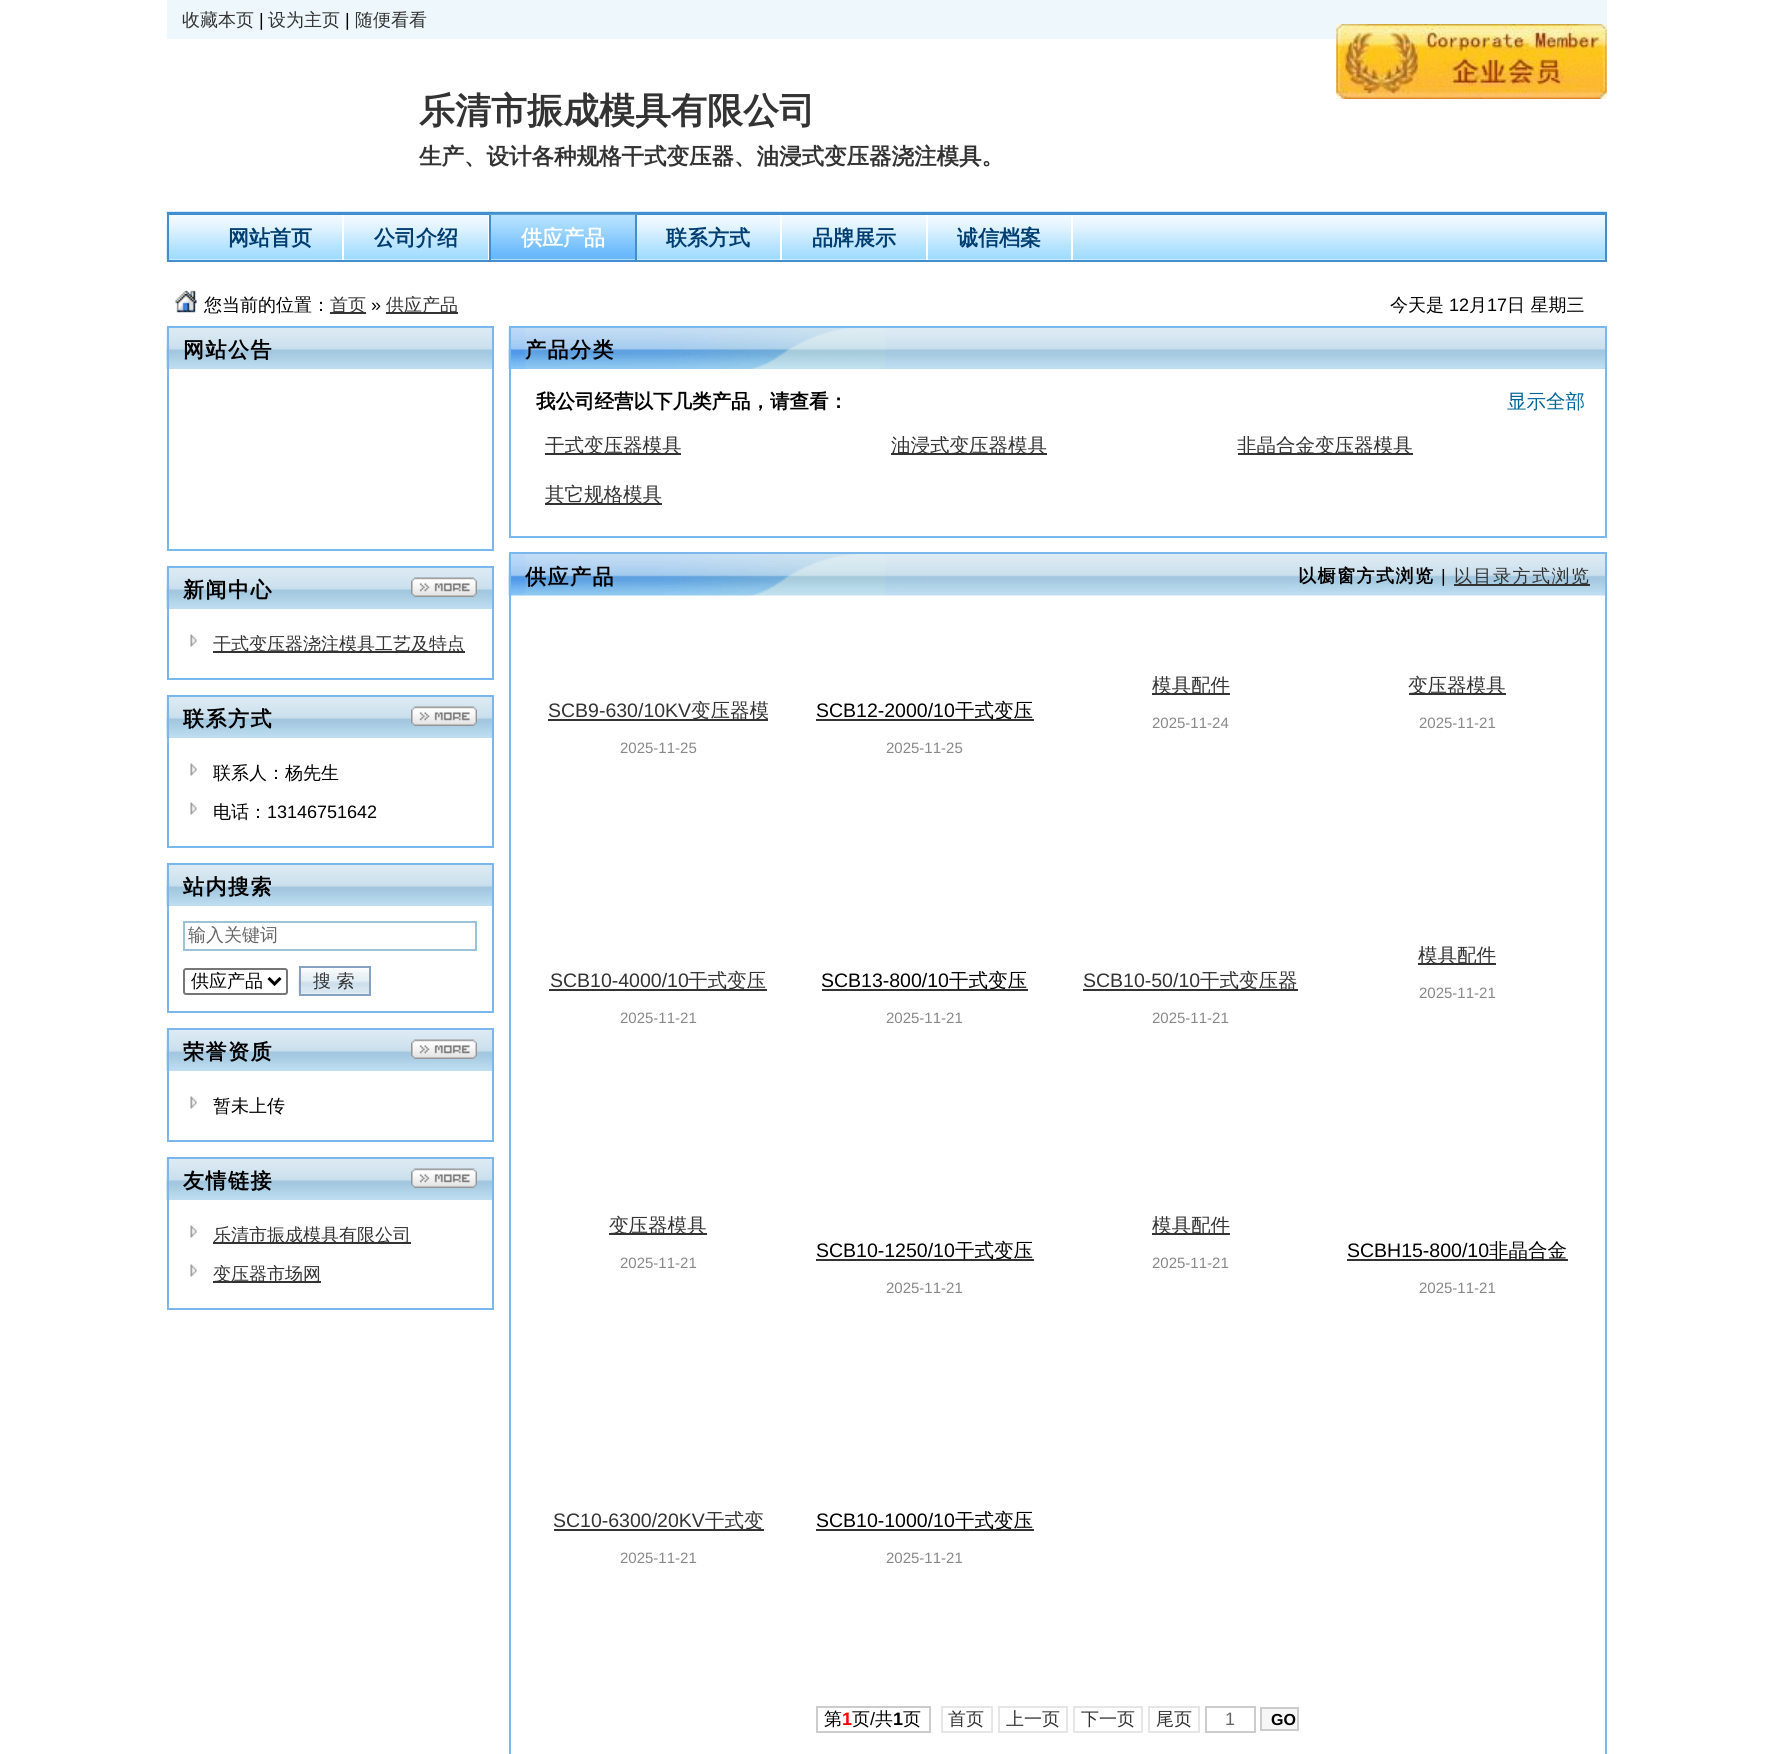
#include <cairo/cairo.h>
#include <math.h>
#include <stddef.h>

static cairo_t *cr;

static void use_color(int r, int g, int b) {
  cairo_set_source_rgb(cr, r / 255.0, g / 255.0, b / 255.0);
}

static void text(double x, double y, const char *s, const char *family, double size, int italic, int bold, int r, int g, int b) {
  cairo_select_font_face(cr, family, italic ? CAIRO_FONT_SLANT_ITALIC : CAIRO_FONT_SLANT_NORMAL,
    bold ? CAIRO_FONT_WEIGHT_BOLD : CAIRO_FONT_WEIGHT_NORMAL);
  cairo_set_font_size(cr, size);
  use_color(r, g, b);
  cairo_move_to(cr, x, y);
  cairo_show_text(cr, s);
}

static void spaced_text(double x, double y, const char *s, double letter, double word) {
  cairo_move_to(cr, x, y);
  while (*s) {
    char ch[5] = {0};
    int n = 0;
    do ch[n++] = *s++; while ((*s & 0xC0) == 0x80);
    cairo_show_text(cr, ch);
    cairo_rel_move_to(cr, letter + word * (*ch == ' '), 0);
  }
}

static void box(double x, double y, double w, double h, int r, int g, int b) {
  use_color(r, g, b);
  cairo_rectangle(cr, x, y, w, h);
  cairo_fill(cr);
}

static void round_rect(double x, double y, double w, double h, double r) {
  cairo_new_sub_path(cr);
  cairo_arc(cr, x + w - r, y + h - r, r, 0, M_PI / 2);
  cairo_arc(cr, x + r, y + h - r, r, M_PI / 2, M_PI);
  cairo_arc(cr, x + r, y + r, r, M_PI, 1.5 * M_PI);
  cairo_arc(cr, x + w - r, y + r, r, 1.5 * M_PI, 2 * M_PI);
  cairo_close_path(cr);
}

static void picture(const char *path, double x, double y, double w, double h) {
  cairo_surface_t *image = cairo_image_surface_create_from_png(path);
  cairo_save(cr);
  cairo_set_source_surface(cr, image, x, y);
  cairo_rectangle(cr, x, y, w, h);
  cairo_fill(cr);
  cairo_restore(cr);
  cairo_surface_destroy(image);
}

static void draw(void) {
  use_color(255, 255, 255);
  cairo_paint(cr);
  box(167, 0, 1440, 39, 238, 247, 251);
  picture("img_01.png", 1336, 28, 271, 66);
  picture("img_02.png", 1336, 24, 271, 75);
  picture("img_03.png", 166, 211, 1441, 50);
  box(167, 212, 1440, 3, 67, 142, 206);
  box(1605, 212, 2, 49, 67, 142, 206);
  box(167, 260, 1440, 2, 67, 142, 206);
  box(167, 212, 2, 49, 67, 142, 206);
  box(342, 215, 2, 45, 255, 255, 255);
  box(488, 215, 1, 45, 255, 255, 255);
  picture("img_04.png", 489, 214, 147, 46);
  box(635, 215, 2, 45, 67, 142, 206);
  box(489, 215, 2, 45, 67, 142, 206);
  box(780, 215, 2, 45, 255, 255, 255);
  box(926, 215, 2, 45, 255, 255, 255);
  box(1071, 215, 2, 45, 255, 255, 255);
  picture("img_05.png", 175, 290, 22, 23);
  box(330, 312, 36, 2, 51, 51, 51);
  box(386, 312, 72, 2, 51, 51, 51);
  picture("img_06.png", 166, 327, 326, 42);
  box(167, 326, 327, 2, 121, 183, 236);
  box(492, 326, 2, 225, 121, 183, 236);
  box(167, 326, 2, 43, 121, 183, 236);
  box(167, 549, 327, 2, 121, 183, 236);
  box(167, 369, 2, 182, 121, 183, 236);
  picture("img_06.png", 166, 567, 326, 42);
  box(167, 566, 327, 2, 121, 183, 236);
  box(492, 566, 2, 114, 121, 183, 236);
  box(167, 566, 2, 43, 121, 183, 236);
  picture("img_07.png", 411, 577, 66, 20);
  box(167, 678, 327, 2, 121, 183, 236);
  box(167, 609, 2, 71, 121, 183, 236);
  picture("img_08.png", 190, 634, 7, 13);
  box(213, 651, 252, 2, 51, 51, 51);
  picture("img_06.png", 166, 696, 326, 42);
  box(167, 695, 327, 2, 121, 183, 236);
  box(492, 695, 2, 153, 121, 183, 236);
  box(167, 695, 2, 43, 121, 183, 236);
  picture("img_07.png", 411, 706, 66, 20);
  box(167, 846, 327, 2, 121, 183, 236);
  box(167, 738, 2, 110, 121, 183, 236);
  picture("img_08.png", 190, 763, 7, 13);
  picture("img_08.png", 190, 802, 7, 13);
  picture("img_06.png", 166, 864, 326, 42);
  box(167, 863, 327, 2, 121, 183, 236);
  box(492, 863, 2, 150, 121, 183, 236);
  box(167, 863, 2, 43, 121, 183, 236);
  box(167, 1011, 327, 2, 121, 183, 236);
  box(167, 906, 2, 107, 121, 183, 236);
  cairo_rectangle(cr, 184, 922, 292, 28);
  use_color(153, 196, 213);
  cairo_stroke(cr);
  round_rect(184, 969, 103, 25, 2);
  use_color(118, 118, 118);
  cairo_stroke(cr);
  cairo_new_path(cr);
  cairo_move_to(cr, 268.5, 978);
  cairo_line_to(cr, 274.5, 984);
  cairo_line_to(cr, 280.5, 978);
  use_color(0, 0, 0);
  cairo_set_line_width(cr, 3);
  cairo_stroke(cr);
  picture("img_09.png", 298, 969, 71, 26);
  cairo_rectangle(cr, 300, 967, 70, 28);
  use_color(134, 162, 192);
  cairo_set_line_width(cr, 2);
  cairo_stroke(cr);
  picture("img_06.png", 166, 1029, 326, 42);
  box(167, 1028, 327, 2, 121, 183, 236);
  box(492, 1028, 2, 114, 121, 183, 236);
  box(167, 1028, 2, 43, 121, 183, 236);
  picture("img_07.png", 411, 1039, 66, 20);
  box(167, 1140, 327, 2, 121, 183, 236);
  box(167, 1071, 2, 71, 121, 183, 236);
  picture("img_08.png", 190, 1096, 7, 13);
  picture("img_06.png", 166, 1158, 326, 42);
  box(167, 1157, 327, 2, 121, 183, 236);
  box(492, 1157, 2, 153, 121, 183, 236);
  box(167, 1157, 2, 43, 121, 183, 236);
  picture("img_07.png", 411, 1168, 66, 20);
  box(167, 1308, 327, 2, 121, 183, 236);
  box(167, 1200, 2, 110, 121, 183, 236);
  picture("img_08.png", 190, 1225, 7, 13);
  box(213, 1242, 198, 2, 51, 51, 51);
  picture("img_08.png", 190, 1264, 7, 13);
  box(213, 1281, 108, 2, 51, 51, 51);
  picture("img_10.png", 508, 327, 1097, 42);
  box(509, 326, 1098, 2, 121, 183, 236);
  box(1605, 326, 2, 211, 121, 183, 236);
  box(509, 326, 2, 43, 121, 183, 236);
  box(509, 536, 1098, 2, 121, 183, 236);
  box(509, 369, 2, 168, 121, 183, 236);
  box(545, 453, 136, 2, 51, 51, 51);
  box(891, 453, 156, 2, 51, 51, 51);
  box(1238, 453, 175, 2, 51, 51, 51);
  box(545, 503, 117, 2, 51, 51, 51);
  picture("img_11.png", 508, 553, 1097, 43);
  box(509, 552, 1098, 2, 121, 183, 236);
  box(1605, 552, 2, 1202, 121, 183, 236);
  box(509, 552, 2, 1202, 121, 183, 236);
  box(1454, 584, 136, 2, 51, 51, 51);
  box(548, 719, 220, 2, 51, 51, 51);
  box(816, 719, 218, 2, 51, 51, 51);
  box(1152, 693, 78, 2, 51, 51, 51);
  box(1409, 693, 97, 2, 51, 51, 51);
  box(549, 989, 218, 2, 51, 51, 51);
  box(822, 989, 206, 2, 51, 51, 51);
  box(1083, 989, 215, 2, 51, 51, 51);
  box(1418, 963, 78, 2, 51, 51, 51);
  box(609, 1233, 98, 2, 51, 51, 51);
  box(816, 1259, 218, 2, 51, 51, 51);
  box(1152, 1233, 78, 2, 51, 51, 51);
  box(1347, 1259, 221, 2, 51, 51, 51);
  box(554, 1529, 210, 2, 51, 51, 51);
  box(816, 1529, 218, 2, 51, 51, 51);
  box(816, 1706, 114, 2, 204, 204, 204);
  box(816, 1731, 87, 2, 204, 204, 204);
  box(816, 1706, 2, 27, 204, 204, 204);
  box(929, 1706, 2, 27, 204, 204, 204);
  box(903, 1731, 27, 2, 204, 204, 204);
  cairo_rectangle(cr, 942, 1707, 50, 25);
  use_color(230, 230, 230);
  cairo_stroke(cr);
  cairo_rectangle(cr, 999, 1707, 68, 25);
  cairo_stroke(cr);
  cairo_rectangle(cr, 1074, 1707, 68, 25);
  cairo_stroke(cr);
  cairo_rectangle(cr, 1149, 1707, 50, 25);
  cairo_stroke(cr);
  cairo_rectangle(cr, 1206, 1707, 49, 25);
  use_color(204, 204, 204);
  cairo_stroke(cr);
  use_color(246, 246, 246);
  cairo_rectangle(cr, 1261, 1708, 37, 22);
  cairo_fill_preserve(cr);
  use_color(204, 204, 204);
  cairo_stroke(cr);
  text(182, 26, "收藏本页", "WenQuanYi Zen Hei Medium", 18, 0, 0, 51, 51, 51);
  text(259, 26, "|", "Liberation Sans", 18, 0, 0, 0, 0, 0);
  text(268, 26, "设为主页", "WenQuanYi Zen Hei Medium", 18, 0, 0, 51, 51, 51);
  text(345, 26, "|", "Liberation Sans", 18, 0, 0, 0, 0, 0);
  text(355, 26, "随便看看", "WenQuanYi Zen Hei Medium", 18, 0, 0, 51, 51, 51);
  text(419, 123, "乐清市振成模具有限公司", "WenQuanYi Zen Hei", 36, 0, 1, 51, 51, 51);
  text(419, 164, "生产、设计各种规格干式变压器、油浸式变压器浇注模具。", "WenQuanYi Zen Hei", 22.5, 0, 1, 51, 51, 51);
  text(228, 245, "网站首页", "WenQuanYi Zen Hei", 21, 0, 1, 0, 61, 112);
  text(374, 245, "公司介绍", "WenQuanYi Zen Hei", 21, 0, 1, 0, 61, 112);
  text(521, 245, "供应产品", "WenQuanYi Zen Hei", 21, 0, 1, 255, 255, 255);
  text(666, 245, "联系方式", "WenQuanYi Zen Hei", 21, 0, 1, 0, 61, 112);
  text(812, 245, "品牌展示", "WenQuanYi Zen Hei", 21, 0, 1, 0, 61, 112);
  text(957, 245, "诚信档案", "WenQuanYi Zen Hei", 21, 0, 1, 0, 61, 112);
  text(204, 311, "您当前的位置：", "WenQuanYi Zen Hei Medium", 18, 0, 0, 0, 0, 0);
  text(330, 311, "首页", "WenQuanYi Zen Hei Medium", 18, 0, 0, 51, 51, 51);
  text(371, 311, "»", "Liberation Sans", 18, 0, 0, 0, 0, 0);
  text(386, 311, "供应产品", "WenQuanYi Zen Hei Medium", 18, 0, 0, 51, 51, 51);
  text(1390, 311, "今天是", "WenQuanYi Zen Hei Medium", 18, 0, 0, 0, 0, 0);
  text(1449, 311, "12", "Liberation Sans", 18, 0, 0, 0, 0, 0);
  text(1469, 311, "月", "WenQuanYi Zen Hei Medium", 18, 0, 0, 0, 0, 0);
  text(1487, 311, "17", "Liberation Sans", 18, 0, 0, 0, 0, 0);
  text(1507, 311, "日 星期三", "WenQuanYi Zen Hei Medium", 18, 0, 0, 0, 0, 0);
  cairo_select_font_face(cr, "WenQuanYi Zen Hei", CAIRO_FONT_SLANT_NORMAL, CAIRO_FONT_WEIGHT_BOLD);
  cairo_set_font_size(cr, 21);
  spaced_text(183, 357, "网站公告", 1.5, 0);
  spaced_text(183, 597, "新闻中心", 1.5, 0);
  text(213, 650, "干式变压器浇注模具工艺及特点", "WenQuanYi Zen Hei Medium", 18, 0, 0, 51, 51, 51);
  cairo_select_font_face(cr, "WenQuanYi Zen Hei", CAIRO_FONT_SLANT_NORMAL, CAIRO_FONT_WEIGHT_BOLD);
  cairo_set_font_size(cr, 21);
  use_color(0, 0, 0);
  spaced_text(183, 726, "联系方式", 1.5, 0);
  text(213, 779, "联系人：杨先生", "WenQuanYi Zen Hei Medium", 18, 0, 0, 0, 0, 0);
  text(213, 818, "电话：", "WenQuanYi Zen Hei Medium", 18, 0, 0, 0, 0, 0);
  text(267, 818, "13146751642", "Liberation Sans", 18, 0, 0, 0, 0, 0);
  cairo_select_font_face(cr, "WenQuanYi Zen Hei", CAIRO_FONT_SLANT_NORMAL, CAIRO_FONT_WEIGHT_BOLD);
  cairo_set_font_size(cr, 21);
  spaced_text(183, 894, "站内搜索", 1.5, 0);
  text(188, 941, "输入关键词", "WenQuanYi Zen Hei Medium", 18, 0, 0, 102, 102, 102);
  text(191, 987, "供应产品", "WenQuanYi Zen Hei Medium", 18, 0, 0, 0, 0, 0);
  text(313, 987, "搜 索", "WenQuanYi Zen Hei Medium", 18, 0, 0, 51, 51, 51);
  cairo_select_font_face(cr, "WenQuanYi Zen Hei", CAIRO_FONT_SLANT_NORMAL, CAIRO_FONT_WEIGHT_BOLD);
  cairo_set_font_size(cr, 21);
  use_color(0, 0, 0);
  spaced_text(183, 1059, "荣誉资质", 1.5, 0);
  text(213, 1112, "暂未上传", "WenQuanYi Zen Hei Medium", 18, 0, 0, 0, 0, 0);
  cairo_select_font_face(cr, "WenQuanYi Zen Hei", CAIRO_FONT_SLANT_NORMAL, CAIRO_FONT_WEIGHT_BOLD);
  cairo_set_font_size(cr, 21);
  spaced_text(183, 1188, "友情链接", 1.5, 0);
  text(213, 1241, "乐清市振成模具有限公司", "WenQuanYi Zen Hei Medium", 18, 0, 0, 51, 51, 51);
  text(213, 1280, "变压器市场网", "WenQuanYi Zen Hei Medium", 18, 0, 0, 51, 51, 51);
  cairo_select_font_face(cr, "WenQuanYi Zen Hei", CAIRO_FONT_SLANT_NORMAL, CAIRO_FONT_WEIGHT_BOLD);
  cairo_set_font_size(cr, 21);
  use_color(0, 0, 0);
  spaced_text(525, 357, "产品分类", 1.5, 0);
  text(536, 408, "我公司经营以下几类产品，请查看：", "WenQuanYi Zen Hei", 19.5, 0, 1, 0, 0, 0);
  text(1507, 408, "显示全部", "WenQuanYi Zen Hei Medium", 19.5, 0, 0, 0, 102, 153);
  text(545, 452, "干式变压器模具", "WenQuanYi Zen Hei Medium", 19.5, 0, 0, 51, 51, 51);
  text(891, 452, "油浸式变压器模具", "WenQuanYi Zen Hei Medium", 19.5, 0, 0, 51, 51, 51);
  text(1237, 452, "非晶合金变压器模具", "WenQuanYi Zen Hei Medium", 19.5, 0, 0, 51, 51, 51);
  text(545, 501, "其它规格模具", "WenQuanYi Zen Hei Medium", 19.5, 0, 0, 51, 51, 51);
  cairo_select_font_face(cr, "WenQuanYi Zen Hei", CAIRO_FONT_SLANT_NORMAL, CAIRO_FONT_WEIGHT_BOLD);
  cairo_set_font_size(cr, 21);
  use_color(0, 0, 0);
  spaced_text(525, 584, "供应产品", 1.5, 0);
  cairo_set_font_size(cr, 18);
  spaced_text(1298, 582, "以橱窗方式浏览", 1.5, 0);
  cairo_select_font_face(cr, "Liberation Sans", CAIRO_FONT_SLANT_NORMAL, CAIRO_FONT_WEIGHT_NORMAL);
  spaced_text(1441, 582, "|", 1.5, 0);
  cairo_select_font_face(cr, "WenQuanYi Zen Hei Medium", CAIRO_FONT_SLANT_NORMAL, CAIRO_FONT_WEIGHT_NORMAL);
  use_color(51, 51, 51);
  spaced_text(1454, 582, "以目录方式浏览", 1.5, 0);
  text(548, 717, "SCB9-630/10KV", "Liberation Sans", 19.5, 0, 0, 51, 51, 51);
  text(691, 717, "变压器模", "WenQuanYi Zen Hei Medium", 19.5, 0, 0, 51, 51, 51);
  text(620, 753, "2025-11-25", "Liberation Sans", 15, 0, 0, 136, 136, 136);
  text(816, 717, "SCB12-2000/10", "Liberation Sans", 19.5, 0, 0, 0, 0, 0);
  text(955, 717, "干式变压", "WenQuanYi Zen Hei Medium", 19.5, 0, 0, 0, 0, 0);
  text(886, 753, "2025-11-25", "Liberation Sans", 15, 0, 0, 136, 136, 136);
  text(1152, 692, "模具配件", "WenQuanYi Zen Hei Medium", 19.5, 0, 0, 51, 51, 51);
  text(1152, 728, "2025-11-24", "Liberation Sans", 15, 0, 0, 136, 136, 136);
  text(1408, 692, "变压器模具", "WenQuanYi Zen Hei Medium", 19.5, 0, 0, 51, 51, 51);
  text(1419, 728, "2025-11-21", "Liberation Sans", 15, 0, 0, 136, 136, 136);
  text(550, 987, "SCB10-4000/10", "Liberation Sans", 19.5, 0, 0, 51, 51, 51);
  text(688, 987, "干式变压", "WenQuanYi Zen Hei Medium", 19.5, 0, 0, 51, 51, 51);
  text(620, 1023, "2025-11-21", "Liberation Sans", 15, 0, 0, 136, 136, 136);
  text(821, 987, "SCB13-800/10", "Liberation Sans", 19.5, 0, 0, 0, 0, 0);
  text(949, 987, "干式变压", "WenQuanYi Zen Hei Medium", 19.5, 0, 0, 0, 0, 0);
  text(886, 1023, "2025-11-21", "Liberation Sans", 15, 0, 0, 136, 136, 136);
  text(1083, 987, "SCB10-50/10", "Liberation Sans", 19.5, 0, 0, 51, 51, 51);
  text(1200, 987, "干式变压器", "WenQuanYi Zen Hei Medium", 19.5, 0, 0, 51, 51, 51);
  text(1152, 1023, "2025-11-21", "Liberation Sans", 15, 0, 0, 136, 136, 136);
  text(1418, 962, "模具配件", "WenQuanYi Zen Hei Medium", 19.5, 0, 0, 51, 51, 51);
  text(1419, 998, "2025-11-21", "Liberation Sans", 15, 0, 0, 136, 136, 136);
  text(609, 1232, "变压器模具", "WenQuanYi Zen Hei Medium", 19.5, 0, 0, 51, 51, 51);
  text(620, 1268, "2025-11-21", "Liberation Sans", 15, 0, 0, 136, 136, 136);
  text(816, 1257, "SCB10-1250/10", "Liberation Sans", 19.5, 0, 0, 0, 0, 0);
  text(955, 1257, "干式变压", "WenQuanYi Zen Hei Medium", 19.5, 0, 0, 0, 0, 0);
  text(886, 1293, "2025-11-21", "Liberation Sans", 15, 0, 0, 136, 136, 136);
  text(1152, 1232, "模具配件", "WenQuanYi Zen Hei Medium", 19.5, 0, 0, 51, 51, 51);
  text(1152, 1268, "2025-11-21", "Liberation Sans", 15, 0, 0, 136, 136, 136);
  text(1347, 1257, "SCBH15-800/10", "Liberation Sans", 19.5, 0, 0, 0, 0, 0);
  text(1489, 1257, "非晶合金", "WenQuanYi Zen Hei Medium", 19.5, 0, 0, 0, 0, 0);
  text(1419, 1293, "2025-11-21", "Liberation Sans", 15, 0, 0, 136, 136, 136);
  text(553, 1527, "SC10-6300/20KV", "Liberation Sans", 19.5, 0, 0, 51, 51, 51);
  text(705, 1527, "干式变", "WenQuanYi Zen Hei Medium", 19.5, 0, 0, 51, 51, 51);
  text(620, 1563, "2025-11-21", "Liberation Sans", 15, 0, 0, 136, 136, 136);
  text(816, 1527, "SCB10-1000/10", "Liberation Sans", 19.5, 0, 0, 0, 0, 0);
  text(955, 1527, "干式变压", "WenQuanYi Zen Hei Medium", 19.5, 0, 0, 0, 0, 0);
  text(886, 1563, "2025-11-21", "Liberation Sans", 15, 0, 0, 136, 136, 136);
  text(824, 1725, "第", "WenQuanYi Zen Hei Medium", 18, 0, 0, 0, 0, 0);
  text(842, 1725, "1", "Liberation Sans", 18, 0, 1, 255, 0, 0);
  text(852, 1725, "页", "WenQuanYi Zen Hei Medium", 18, 0, 0, 0, 0, 0);
  text(870, 1725, "/", "Liberation Sans", 18, 0, 0, 0, 0, 0);
  text(875, 1725, "共", "WenQuanYi Zen Hei Medium", 18, 0, 0, 0, 0, 0);
  text(893, 1725, "1", "Liberation Sans", 18, 0, 1, 0, 0, 0);
  text(903, 1725, "页", "WenQuanYi Zen Hei Medium", 18, 0, 0, 0, 0, 0);
  text(948, 1725, "首页", "WenQuanYi Zen Hei Medium", 18, 0, 0, 51, 51, 51);
  text(1006, 1725, "上一页", "WenQuanYi Zen Hei Medium", 18, 0, 0, 51, 51, 51);
  text(1081, 1725, "下一页", "WenQuanYi Zen Hei Medium", 18, 0, 0, 51, 51, 51);
  text(1156, 1725, "尾页", "WenQuanYi Zen Hei Medium", 18, 0, 0, 51, 51, 51);
  text(1225, 1725, "1", "Liberation Sans", 18, 0, 0, 102, 102, 102);
  text(1271, 1725, "GO", "Liberation Sans", 16, 0, 1, 0, 0, 0);
}

int main(void) {
  cairo_surface_t *surface = cairo_image_surface_create(CAIRO_FORMAT_RGB24, 1772, 1754);
  cr = cairo_create(surface);
  cairo_font_options_t *options = cairo_font_options_create();
  cairo_font_options_set_hint_metrics(options, CAIRO_HINT_METRICS_OFF);
  cairo_font_options_set_hint_style(options, CAIRO_HINT_STYLE_NONE);
  cairo_set_font_options(cr, options);
  cairo_set_miter_limit(cr, 4);
  draw();
  cairo_surface_write_to_png(surface, "out.png");
  cairo_font_options_destroy(options);
  cairo_destroy(cr);
  cairo_surface_destroy(surface);
  return 0;
}
